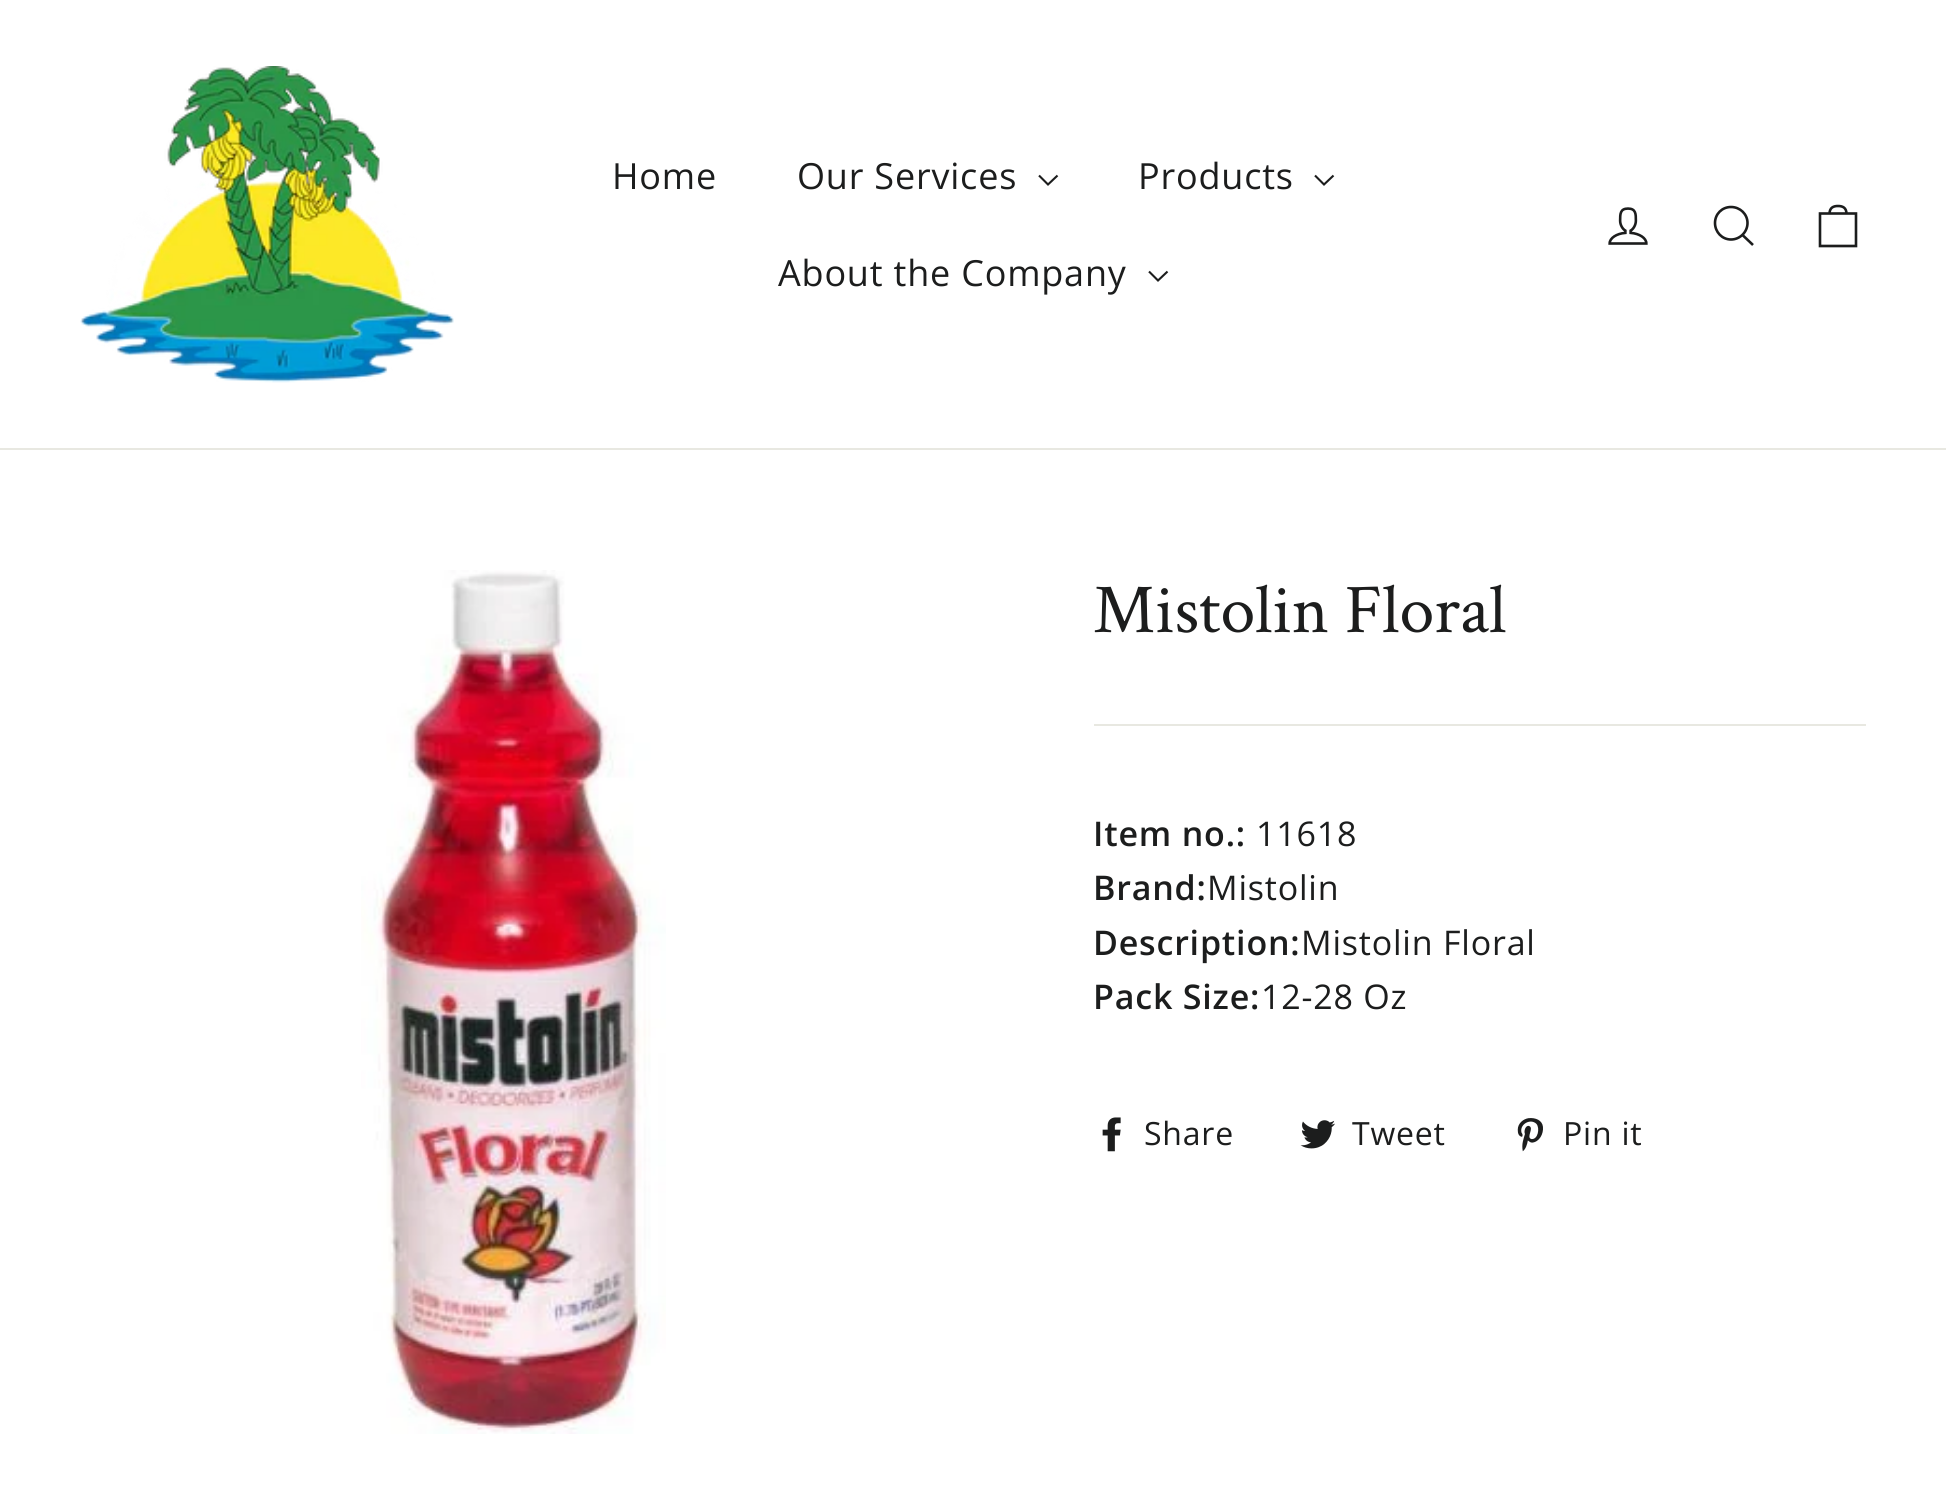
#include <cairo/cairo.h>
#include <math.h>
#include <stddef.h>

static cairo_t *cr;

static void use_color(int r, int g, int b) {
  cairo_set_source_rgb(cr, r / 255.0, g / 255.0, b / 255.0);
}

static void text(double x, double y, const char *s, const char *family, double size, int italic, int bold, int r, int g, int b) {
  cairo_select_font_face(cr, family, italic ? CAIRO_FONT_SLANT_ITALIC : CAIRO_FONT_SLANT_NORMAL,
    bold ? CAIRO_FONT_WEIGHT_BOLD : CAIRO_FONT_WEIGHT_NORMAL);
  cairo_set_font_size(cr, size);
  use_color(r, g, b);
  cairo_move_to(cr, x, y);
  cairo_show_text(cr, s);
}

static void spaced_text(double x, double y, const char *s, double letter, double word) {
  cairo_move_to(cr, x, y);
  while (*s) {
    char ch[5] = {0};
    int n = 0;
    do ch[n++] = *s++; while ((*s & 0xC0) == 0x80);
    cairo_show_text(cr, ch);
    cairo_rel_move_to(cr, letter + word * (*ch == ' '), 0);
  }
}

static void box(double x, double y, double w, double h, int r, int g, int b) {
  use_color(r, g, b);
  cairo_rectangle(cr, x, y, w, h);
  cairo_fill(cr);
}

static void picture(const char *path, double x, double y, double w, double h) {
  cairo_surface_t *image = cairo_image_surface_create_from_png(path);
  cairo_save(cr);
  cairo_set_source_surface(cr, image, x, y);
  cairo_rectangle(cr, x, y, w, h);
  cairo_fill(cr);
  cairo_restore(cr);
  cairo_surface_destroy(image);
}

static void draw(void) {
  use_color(255, 255, 255);
  cairo_paint(cr);
  box(0, 448, 1946, 2, 232, 232, 225);
  picture("img_01.png", 80, 66, 374, 317);
  cairo_new_path(cr);
  cairo_move_to(cr, 1039, 175.5);
  cairo_line_to(cr, 1048, 184.5);
  cairo_line_to(cr, 1057.5, 175.5);
  use_color(28, 29, 29);
  cairo_set_line_width(cr, 2.1);
  cairo_stroke(cr);
  cairo_new_path(cr);
  cairo_move_to(cr, 1315, 175.5);
  cairo_line_to(cr, 1324, 184.5);
  cairo_line_to(cr, 1333.5, 175.5);
  cairo_stroke(cr);
  cairo_new_path(cr);
  cairo_move_to(cr, 1149, 271.5);
  cairo_line_to(cr, 1158, 280.5);
  cairo_line_to(cr, 1167.5, 271.5);
  cairo_stroke(cr);
  picture("img_02.png", 1608, 207, 40, 38);
  cairo_new_path(cr);
  cairo_move_to(cr, 1747.5, 223);
  cairo_curve_to(cr, 1747.5, 232, 1740, 239.5, 1731, 239.5);
  cairo_curve_to(cr, 1722, 239.5, 1715, 232, 1715, 223);
  cairo_curve_to(cr, 1715, 214, 1722, 207, 1731, 207);
  cairo_curve_to(cr, 1740, 207, 1747.5, 214, 1747.5, 223);
  cairo_close_path(cr);
  cairo_move_to(cr, 1753, 245);
  cairo_line_to(cr, 1742.5, 235);
  cairo_set_line_width(cr, 2.6);
  cairo_stroke(cr);
  cairo_new_path(cr);
  cairo_move_to(cr, 1820, 213.5);
  cairo_line_to(cr, 1856, 213.5);
  cairo_line_to(cr, 1856, 246);
  cairo_line_to(cr, 1820, 246);
  cairo_close_path(cr);
  cairo_move_to(cr, 1829.5, 214);
  cairo_curve_to(cr, 1829.5, 207.5, 1833.5, 206, 1838, 206);
  cairo_curve_to(cr, 1842.5, 206, 1846.5, 207.5, 1846.5, 214);
  cairo_stroke(cr);
  picture("img_03.png", 361, 570, 305, 864);
  box(1094, 724, 772, 2, 232, 232, 225);
  picture("img_04.png", 1102, 1117, 19, 35);
  picture("img_05.png", 1300, 1120, 35, 29);
  picture("img_06.png", 1517, 1118, 26, 34);
  cairo_select_font_face(cr, "Open Sans", CAIRO_FONT_SLANT_NORMAL, CAIRO_FONT_WEIGHT_NORMAL);
  cairo_set_font_size(cr, 36);
  use_color(28, 29, 29);
  spaced_text(612, 189, "Home", 0.8, 0);
  spaced_text(797, 189, "Our Services", 0.8, 0);
  spaced_text(1138, 189, "Products", 0.8, 0);
  spaced_text(778, 286, "About the Company", 0.8, 0);
  text(1093, 632, "Mistolin Floral", "Crimson Text", 70, 0, 0, 28, 29, 29);
  cairo_select_font_face(cr, "Open Sans SemiBold", CAIRO_FONT_SLANT_NORMAL, CAIRO_FONT_WEIGHT_NORMAL);
  cairo_set_font_size(cr, 34);
  spaced_text(1093, 846, "Item no.:", 0.8, 0);
  cairo_select_font_face(cr, "Open Sans", CAIRO_FONT_SLANT_NORMAL, CAIRO_FONT_WEIGHT_NORMAL);
  spaced_text(1256, 846, "11618", 0.8, 0);
  cairo_select_font_face(cr, "Open Sans SemiBold", CAIRO_FONT_SLANT_NORMAL, CAIRO_FONT_WEIGHT_NORMAL);
  spaced_text(1093, 900, "Brand:", 0.8, 0);
  cairo_select_font_face(cr, "Open Sans", CAIRO_FONT_SLANT_NORMAL, CAIRO_FONT_WEIGHT_NORMAL);
  spaced_text(1207, 900, "Mistolin", 0.8, 0);
  cairo_select_font_face(cr, "Open Sans SemiBold", CAIRO_FONT_SLANT_NORMAL, CAIRO_FONT_WEIGHT_NORMAL);
  spaced_text(1093, 955, "Description:", 0.8, 0);
  cairo_select_font_face(cr, "Open Sans", CAIRO_FONT_SLANT_NORMAL, CAIRO_FONT_WEIGHT_NORMAL);
  spaced_text(1301, 955, "Mistolin Floral", 0.8, 0);
  cairo_select_font_face(cr, "Open Sans SemiBold", CAIRO_FONT_SLANT_NORMAL, CAIRO_FONT_WEIGHT_NORMAL);
  spaced_text(1093, 1009, "Pack Size:", 0.8, 0);
  cairo_select_font_face(cr, "Open Sans", CAIRO_FONT_SLANT_NORMAL, CAIRO_FONT_WEIGHT_NORMAL);
  spaced_text(1261, 1009, "12-28 Oz", 0.8, 0);
  cairo_set_font_size(cr, 32);
  spaced_text(1144, 1145, "Share", 0.8, 0);
  spaced_text(1352, 1145, "Tweet", 0.8, 0);
  spaced_text(1563, 1145, "Pin it", 0.8, 0);
}

int main(void) {
  cairo_surface_t *surface = cairo_image_surface_create(CAIRO_FORMAT_RGB24, 1946, 1512);
  cr = cairo_create(surface);
  cairo_font_options_t *options = cairo_font_options_create();
  cairo_font_options_set_hint_metrics(options, CAIRO_HINT_METRICS_OFF);
  cairo_font_options_set_hint_style(options, CAIRO_HINT_STYLE_NONE);
  cairo_set_font_options(cr, options);
  cairo_set_miter_limit(cr, 4);
  draw();
  cairo_surface_write_to_png(surface, "out.png");
  cairo_font_options_destroy(options);
  cairo_destroy(cr);
  cairo_surface_destroy(surface);
  return 0;
}
